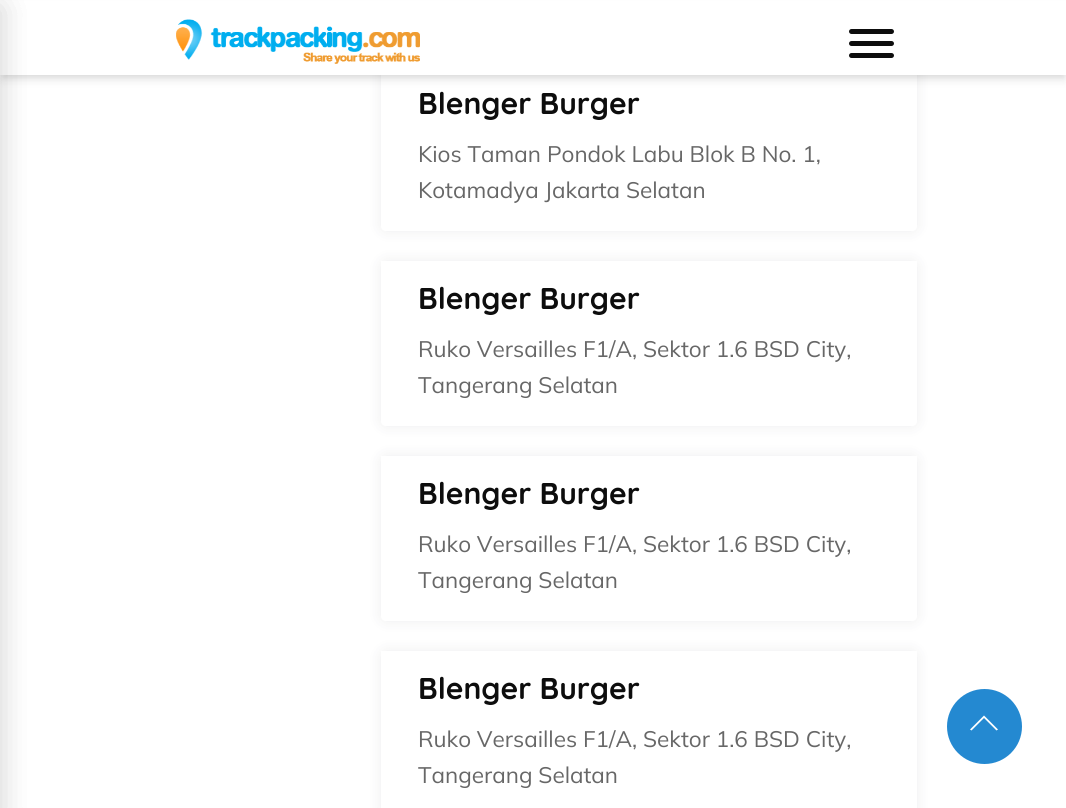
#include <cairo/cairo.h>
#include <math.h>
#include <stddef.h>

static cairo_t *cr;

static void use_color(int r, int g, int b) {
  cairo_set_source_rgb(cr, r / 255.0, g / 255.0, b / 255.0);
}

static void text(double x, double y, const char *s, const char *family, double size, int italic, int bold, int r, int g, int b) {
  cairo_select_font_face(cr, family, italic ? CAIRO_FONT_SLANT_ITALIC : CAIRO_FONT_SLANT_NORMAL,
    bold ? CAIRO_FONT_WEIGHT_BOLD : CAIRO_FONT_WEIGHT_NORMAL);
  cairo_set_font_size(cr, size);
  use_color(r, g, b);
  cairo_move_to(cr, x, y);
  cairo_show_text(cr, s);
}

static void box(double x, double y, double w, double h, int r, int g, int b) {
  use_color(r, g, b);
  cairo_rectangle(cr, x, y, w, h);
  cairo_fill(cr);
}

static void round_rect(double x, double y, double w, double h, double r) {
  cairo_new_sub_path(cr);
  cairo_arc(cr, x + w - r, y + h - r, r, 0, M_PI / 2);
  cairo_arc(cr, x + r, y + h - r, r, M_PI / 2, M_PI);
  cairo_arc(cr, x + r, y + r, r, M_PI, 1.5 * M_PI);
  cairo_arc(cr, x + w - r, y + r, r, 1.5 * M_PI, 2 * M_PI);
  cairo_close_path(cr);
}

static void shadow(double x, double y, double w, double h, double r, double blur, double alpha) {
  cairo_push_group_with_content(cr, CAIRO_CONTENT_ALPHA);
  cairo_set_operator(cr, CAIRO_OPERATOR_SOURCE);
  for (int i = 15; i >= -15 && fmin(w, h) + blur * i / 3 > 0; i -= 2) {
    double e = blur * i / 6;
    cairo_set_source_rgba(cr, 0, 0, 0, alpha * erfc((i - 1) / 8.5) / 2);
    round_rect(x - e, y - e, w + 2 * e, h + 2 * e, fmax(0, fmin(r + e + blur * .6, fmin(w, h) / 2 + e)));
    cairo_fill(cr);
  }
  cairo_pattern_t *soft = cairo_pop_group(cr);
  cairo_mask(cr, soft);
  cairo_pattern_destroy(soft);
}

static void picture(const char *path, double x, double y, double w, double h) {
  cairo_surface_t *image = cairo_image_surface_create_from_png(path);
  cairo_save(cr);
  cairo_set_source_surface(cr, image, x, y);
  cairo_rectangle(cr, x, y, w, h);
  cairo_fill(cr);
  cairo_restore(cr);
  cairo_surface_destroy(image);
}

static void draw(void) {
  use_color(255, 255, 255);
  cairo_paint(cr);
  use_color(36, 37, 51);
  shadow(381, 66, 536, 165, 5, 7.5, 0.08);
  use_color(255, 255, 255);
  cairo_new_path(cr);
  cairo_move_to(cr, 381, 66);
  cairo_line_to(cr, 917, 66);
  cairo_line_to(cr, 917, 226);
  cairo_curve_to(cr, 917, 229, 915, 231, 912, 231);
  cairo_line_to(cr, 386, 231);
  cairo_curve_to(cr, 383, 231, 381, 229, 381, 226);
  cairo_close_path(cr);
  cairo_fill(cr);
  use_color(0, 0, 0);
  shadow(3, 6, 1061, 69, 0, 3, 0.1);
  shadow(2, 8, 1063, 72, 0, 4.5, 0.1);
  box(0, 1, 1066, 74, 255, 255, 255);
  use_color(0, 0, 0);
  shadow(-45, 8, 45, 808, 0, 15, 0.1);
  picture("img_01.png", 176, 19, 244, 45);
  use_color(13, 13, 13);
  round_rect(849, 29, 45, 5, 2.5);
  cairo_fill(cr);
  round_rect(849, 41, 45, 5, 2.5);
  cairo_fill(cr);
  round_rect(849, 53, 45, 5, 2.5);
  cairo_fill(cr);
  use_color(0, 0, 0);
  shadow(-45, 8, 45, 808, 0, 15, 0.1);
  use_color(36, 37, 51);
  shadow(381, 261, 536, 165, 5, 7.5, 0.08);
  use_color(255, 255, 255);
  cairo_new_path(cr);
  cairo_move_to(cr, 381, 261);
  cairo_line_to(cr, 917, 261);
  cairo_line_to(cr, 917, 421);
  cairo_curve_to(cr, 917, 424, 915, 426, 912, 426);
  cairo_line_to(cr, 386, 426);
  cairo_curve_to(cr, 383, 426, 381, 424, 381, 421);
  cairo_close_path(cr);
  cairo_fill(cr);
  use_color(36, 37, 51);
  shadow(381, 456, 536, 165, 5, 7.5, 0.08);
  use_color(255, 255, 255);
  cairo_new_path(cr);
  cairo_move_to(cr, 381, 456);
  cairo_line_to(cr, 917, 456);
  cairo_line_to(cr, 917, 616);
  cairo_curve_to(cr, 917, 619, 915, 621, 912, 621);
  cairo_line_to(cr, 386, 621);
  cairo_curve_to(cr, 383, 621, 381, 619, 381, 616);
  cairo_close_path(cr);
  cairo_fill(cr);
  use_color(36, 37, 51);
  shadow(381, 651, 536, 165, 5, 7.5, 0.08);
  box(381, 651, 536, 157, 255, 255, 255);
  use_color(36, 137, 209);
  cairo_arc(cr, 984.5, 726.5, 37.5, 0, 2 * M_PI);
  cairo_fill(cr);
  use_color(255, 255, 255);
  cairo_new_path(cr);
  cairo_move_to(cr, 998, 729.5);
  cairo_line_to(cr, 996.5, 730.5);
  cairo_line_to(cr, 984, 718);
  cairo_line_to(cr, 971.5, 730.5);
  cairo_line_to(cr, 970, 729.5);
  cairo_line_to(cr, 984, 715.5);
  cairo_close_path(cr);
  cairo_fill(cr);
  text(418, 114, "Blenger Burger", "Quicksand", 30, 0, 1, 13, 13, 13);
  text(418, 162, "Kios Taman Pondok Labu Blok B No. 1,", "Mulish", 22.5, 0, 0, 103, 103, 103);
  text(418, 198, "Kotamadya Jakarta Selatan", "Mulish", 22.5, 0, 0, 103, 103, 103);
  text(418, 309, "Blenger Burger", "Quicksand", 30, 0, 1, 13, 13, 13);
  text(418, 357, "Ruko Versailles F1/A, Sektor 1.6 BSD City,", "Mulish", 22.5, 0, 0, 103, 103, 103);
  text(418, 393, "Tangerang Selatan", "Mulish", 22.5, 0, 0, 103, 103, 103);
  text(418, 504, "Blenger Burger", "Quicksand", 30, 0, 1, 13, 13, 13);
  text(418, 552, "Ruko Versailles F1/A, Sektor 1.6 BSD City,", "Mulish", 22.5, 0, 0, 103, 103, 103);
  text(418, 588, "Tangerang Selatan", "Mulish", 22.5, 0, 0, 103, 103, 103);
  text(418, 699, "Blenger Burger", "Quicksand", 30, 0, 1, 13, 13, 13);
  text(418, 747, "Ruko Versailles F1/A, Sektor 1.6 BSD City,", "Mulish", 22.5, 0, 0, 103, 103, 103);
  text(418, 783, "Tangerang Selatan", "Mulish", 22.5, 0, 0, 103, 103, 103);
}

int main(void) {
  cairo_surface_t *surface = cairo_image_surface_create(CAIRO_FORMAT_RGB24, 1066, 808);
  cr = cairo_create(surface);
  cairo_font_options_t *options = cairo_font_options_create();
  cairo_font_options_set_hint_metrics(options, CAIRO_HINT_METRICS_OFF);
  cairo_font_options_set_hint_style(options, CAIRO_HINT_STYLE_NONE);
  cairo_set_font_options(cr, options);
  cairo_set_miter_limit(cr, 4);
  draw();
  cairo_surface_write_to_png(surface, "out.png");
  cairo_font_options_destroy(options);
  cairo_destroy(cr);
  cairo_surface_destroy(surface);
  return 0;
}
